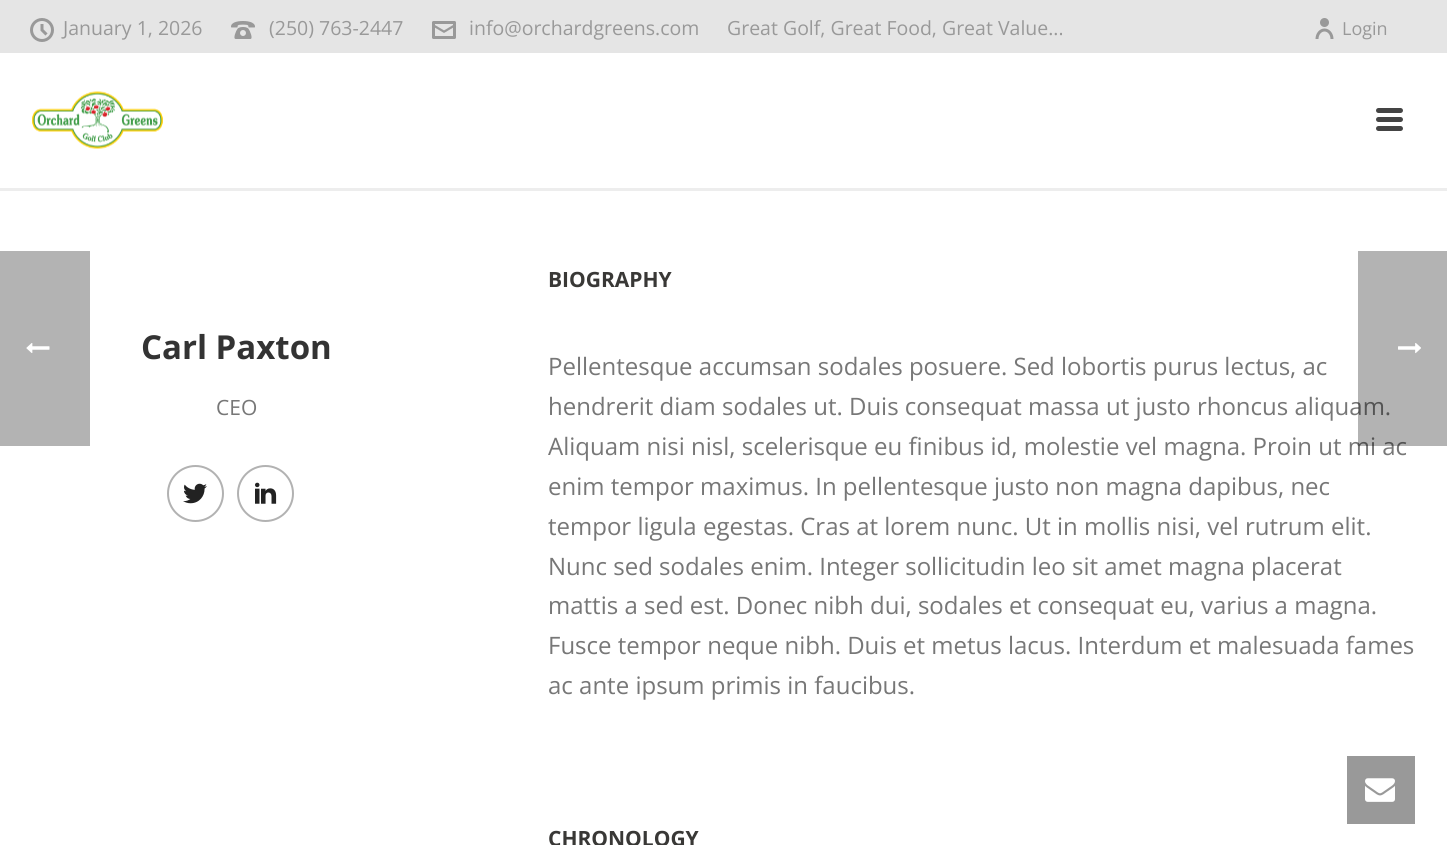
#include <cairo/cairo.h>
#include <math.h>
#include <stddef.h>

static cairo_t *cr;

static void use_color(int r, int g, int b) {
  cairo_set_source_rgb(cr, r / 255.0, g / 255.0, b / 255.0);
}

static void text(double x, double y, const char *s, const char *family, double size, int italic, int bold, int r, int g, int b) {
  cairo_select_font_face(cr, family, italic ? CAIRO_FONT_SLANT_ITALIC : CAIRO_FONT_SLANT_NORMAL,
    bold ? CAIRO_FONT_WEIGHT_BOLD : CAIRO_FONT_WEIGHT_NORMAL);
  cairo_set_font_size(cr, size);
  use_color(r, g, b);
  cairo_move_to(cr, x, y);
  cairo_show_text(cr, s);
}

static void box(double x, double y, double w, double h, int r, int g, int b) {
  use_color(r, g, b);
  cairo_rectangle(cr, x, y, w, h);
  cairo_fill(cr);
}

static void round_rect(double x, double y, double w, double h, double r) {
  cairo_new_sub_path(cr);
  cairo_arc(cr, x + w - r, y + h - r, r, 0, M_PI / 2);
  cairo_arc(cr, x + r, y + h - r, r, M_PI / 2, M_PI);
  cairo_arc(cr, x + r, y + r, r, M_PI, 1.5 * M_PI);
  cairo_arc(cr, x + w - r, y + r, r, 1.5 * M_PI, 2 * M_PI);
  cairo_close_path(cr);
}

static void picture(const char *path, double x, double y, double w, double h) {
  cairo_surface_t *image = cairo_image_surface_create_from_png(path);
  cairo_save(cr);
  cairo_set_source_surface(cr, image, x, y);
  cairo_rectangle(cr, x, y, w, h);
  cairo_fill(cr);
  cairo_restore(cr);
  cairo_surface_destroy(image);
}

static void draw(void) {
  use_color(255, 255, 255);
  cairo_paint(cr);
  box(0, 251, 90, 195, 179, 179, 179);
  picture("img_01.png", 26, 343, 24, 10);
  box(0, 188, 1447, 3, 237, 237, 237);
  box(0, 0, 1447, 53, 229, 229, 229);
  picture("img_02.png", 30, 18, 24, 24);
  picture("img_03.png", 231, 21, 24, 18);
  picture("img_04.png", 432, 21, 24, 18);
  picture("img_05.png", 1315, 18, 19, 21);
  picture("img_06.png", 32, 91, 131, 58);
  use_color(68, 68, 68);
  round_rect(1376, 108, 27, 5, 2.5);
  cairo_fill(cr);
  round_rect(1376, 117, 27, 5, 2.5);
  cairo_fill(cr);
  round_rect(1376, 126, 27, 5, 2.5);
  cairo_fill(cr);
  cairo_arc(cr, 195.5, 493.5, 27.5, 0, 2 * M_PI);
  use_color(178, 178, 178);
  cairo_stroke(cr);
  picture("img_07.png", 183, 483, 24, 21);
  cairo_arc(cr, 265.5, 493.5, 27.5, 0, 2 * M_PI);
  cairo_stroke(cr);
  picture("img_08.png", 255, 482, 22, 22);
  box(1347, 756, 68, 68, 153, 153, 153);
  picture("img_10.png", 1365, 778, 30, 24);
  text(63, 35, "January 1, 2026", "Open Sans", 19.5, 0, 0, 153, 153, 153);
  text(269, 35, "(250) 763-2447", "Open Sans", 19.5, 0, 0, 153, 153, 153);
  text(469, 35, "info@orchardgreens.com", "Open Sans", 19.5, 0, 0, 153, 153, 153);
  text(727, 35, "Great Golf, Great Food, Great Value...", "Open Sans", 19.5, 0, 0, 153, 153, 153);
  text(1342, 35, "Login", "Open Sans", 18, 0, 0, 153, 153, 153);
  text(141, 359, "Carl Paxton", "Open Sans", 33, 0, 1, 51, 51, 51);
  text(216, 415, "CEO", "Open Sans", 21, 0, 0, 119, 119, 119);
  text(548, 287, "BIOGRAPHY", "Open Sans", 21, 0, 1, 57, 56, 54);
  text(548, 375, "Pellentesque accumsan sodales posuere. Sed lobortis purus lectus, ac", "Open Sans", 24, 0, 0, 119, 119, 119);
  text(548, 415, "hendrerit diam sodales ut. Duis consequat massa ut justo rhoncus aliquam.", "Open Sans", 24, 0, 0, 119, 119, 119);
  text(548, 455, "Aliquam nisi nisl, scelerisque eu finibus id, molestie vel magna. Proin ut mi ac", "Open Sans", 24, 0, 0, 119, 119, 119);
  text(548, 495, "enim tempor maximus. In pellentesque justo non magna dapibus, nec", "Open Sans", 24, 0, 0, 119, 119, 119);
  text(548, 535, "tempor ligula egestas. Cras at lorem nunc. Ut in mollis nisi, vel rutrum elit.", "Open Sans", 24, 0, 0, 119, 119, 119);
  text(548, 575, "Nunc sed sodales enim. Integer sollicitudin leo sit amet magna placerat", "Open Sans", 24, 0, 0, 119, 119, 119);
  text(548, 614, "mattis a sed est. Donec nibh dui, sodales et consequat eu, varius a magna.", "Open Sans", 24, 0, 0, 119, 119, 119);
  text(548, 654, "Fusce tempor neque nibh. Duis et metus lacus. Interdum et malesuada fames", "Open Sans", 24, 0, 0, 119, 119, 119);
  text(548, 694, "ac ante ipsum primis in faucibus.", "Open Sans", 24, 0, 0, 119, 119, 119);
  text(548, 846, "CHRONOLOGY", "Open Sans", 21, 0, 1, 57, 56, 54);
  cairo_set_source_rgba(cr, 0, 0, 0, 0.3);
  cairo_rectangle(cr, 1358, 251, 89, 195);
  cairo_fill(cr);
  picture("img_09.png", 1398, 343, 23, 11);
}

int main(void) {
  cairo_surface_t *surface = cairo_image_surface_create(CAIRO_FORMAT_RGB24, 1447, 845);
  cr = cairo_create(surface);
  cairo_font_options_t *options = cairo_font_options_create();
  cairo_font_options_set_hint_metrics(options, CAIRO_HINT_METRICS_OFF);
  cairo_font_options_set_hint_style(options, CAIRO_HINT_STYLE_NONE);
  cairo_set_font_options(cr, options);
  cairo_set_miter_limit(cr, 4);
  draw();
  cairo_surface_write_to_png(surface, "out.png");
  cairo_font_options_destroy(options);
  cairo_destroy(cr);
  cairo_surface_destroy(surface);
  return 0;
}
